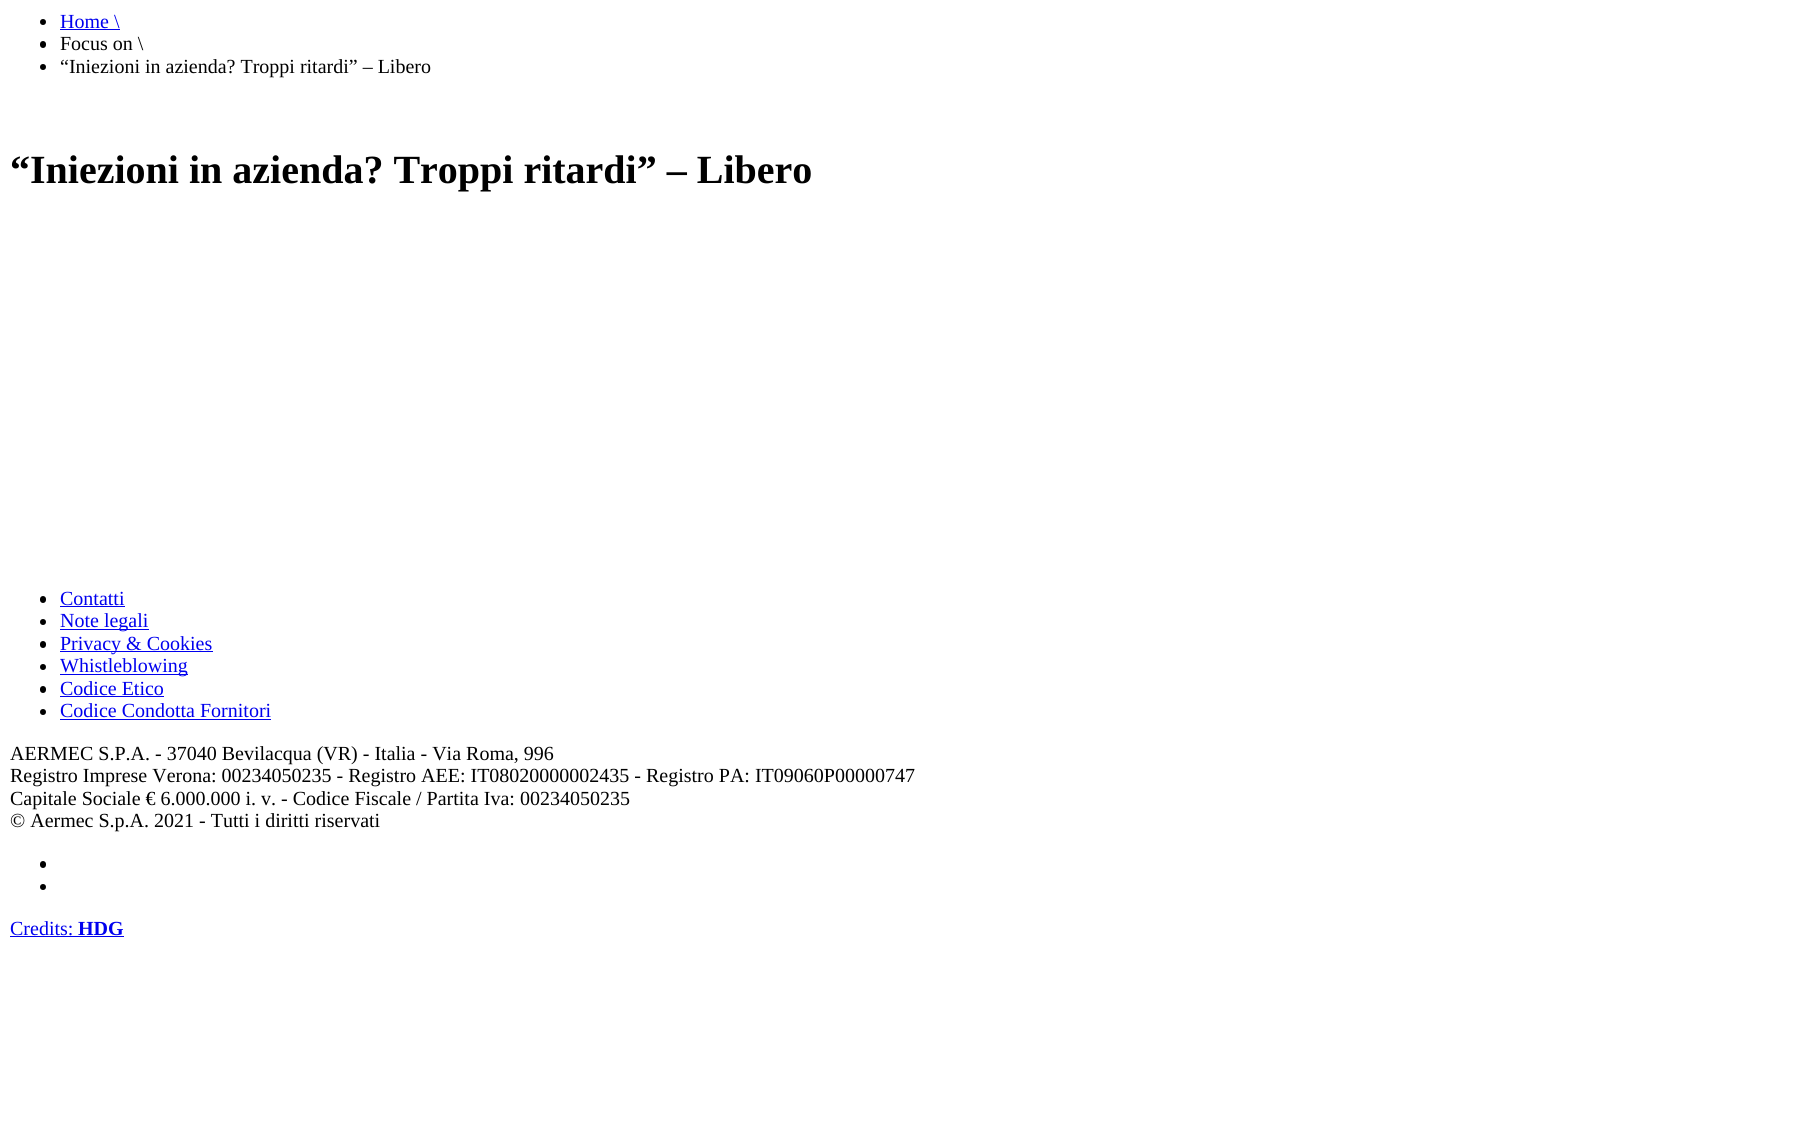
#include <cairo/cairo.h>
#include <math.h>
#include <stddef.h>

static cairo_t *cr;

static void use_color(int r, int g, int b) {
  cairo_set_source_rgb(cr, r / 255.0, g / 255.0, b / 255.0);
}

static void text(double x, double y, const char *s, const char *family, double size, int italic, int bold, int r, int g, int b) {
  cairo_select_font_face(cr, family, italic ? CAIRO_FONT_SLANT_ITALIC : CAIRO_FONT_SLANT_NORMAL,
    bold ? CAIRO_FONT_WEIGHT_BOLD : CAIRO_FONT_WEIGHT_NORMAL);
  cairo_set_font_size(cr, size);
  use_color(r, g, b);
  cairo_move_to(cr, x, y);
  cairo_show_text(cr, s);
}

static void box(double x, double y, double w, double h, int r, int g, int b) {
  use_color(r, g, b);
  cairo_rectangle(cr, x, y, w, h);
  cairo_fill(cr);
}

static void round_rect(double x, double y, double w, double h, double r) {
  cairo_new_sub_path(cr);
  cairo_arc(cr, x + w - r, y + h - r, r, 0, M_PI / 2);
  cairo_arc(cr, x + r, y + h - r, r, M_PI / 2, M_PI);
  cairo_arc(cr, x + r, y + r, r, M_PI, 1.5 * M_PI);
  cairo_arc(cr, x + w - r, y + r, r, 1.5 * M_PI, 2 * M_PI);
  cairo_close_path(cr);
}

static void draw(void) {
  use_color(255, 255, 255);
  cairo_paint(cr);
  use_color(0, 0, 0);
  cairo_arc(cr, 43, 22, 3, 0, 2 * M_PI);
  cairo_fill(cr);
  box(60, 29, 60, 1, 0, 0, 238);
  use_color(0, 0, 0);
  round_rect(40, 41, 6, 7, 3);
  cairo_fill(cr);
  cairo_arc(cr, 43, 67, 3, 0, 2 * M_PI);
  cairo_fill(cr);
  round_rect(40, 596, 6, 7, 3);
  cairo_fill(cr);
  box(60, 606, 65, 1, 0, 0, 238);
  use_color(0, 0, 0);
  cairo_arc(cr, 43, 622, 3, 0, 2 * M_PI);
  cairo_fill(cr);
  box(60, 629, 89, 1, 0, 0, 238);
  use_color(0, 0, 0);
  round_rect(40, 641, 6, 7, 3);
  cairo_fill(cr);
  box(60, 651, 153, 1, 0, 0, 238);
  use_color(0, 0, 0);
  cairo_arc(cr, 43, 667, 3, 0, 2 * M_PI);
  cairo_fill(cr);
  box(60, 674, 128, 1, 0, 0, 238);
  use_color(0, 0, 0);
  round_rect(40, 686, 6, 7, 3);
  cairo_fill(cr);
  box(60, 696, 104, 1, 0, 0, 238);
  use_color(0, 0, 0);
  cairo_arc(cr, 43, 712, 3, 0, 2 * M_PI);
  cairo_fill(cr);
  box(60, 719, 211, 1, 0, 0, 238);
  use_color(0, 0, 0);
  round_rect(40, 861, 6, 7, 3);
  cairo_fill(cr);
  cairo_arc(cr, 43, 887, 3, 0, 2 * M_PI);
  cairo_fill(cr);
  box(10, 936, 114, 1, 0, 0, 238);
  text(60, 28, "Home \\", "Liberation Serif", 20, 0, 0, 0, 0, 238);
  text(60, 50, "Focus on \\", "Liberation Serif", 20, 0, 0, 0, 0, 0);
  text(60, 73, "“Iniezioni in azienda? Troppi ritardi” – Libero", "Liberation Serif", 20, 0, 0, 0, 0, 0);
  text(10, 183, "“Iniezioni in azienda? Troppi ritardi” – Libero", "Liberation Serif", 40, 0, 1, 0, 0, 0);
  text(60, 605, "Contatti", "Liberation Serif", 20, 0, 0, 0, 0, 238);
  text(60, 627, "Note legali", "Liberation Serif", 20, 0, 0, 0, 0, 238);
  text(60, 650, "Privacy & Cookies", "Liberation Serif", 20, 0, 0, 0, 0, 238);
  text(60, 672, "Whistleblowing", "Liberation Serif", 20, 0, 0, 0, 0, 238);
  text(60, 695, "Codice Etico", "Liberation Serif", 20, 0, 0, 0, 0, 238);
  text(60, 717, "Codice Condotta Fornitori", "Liberation Serif", 20, 0, 0, 0, 0, 238);
  text(10, 760, "AERMEC S.P.A. - 37040 Bevilacqua (VR) - Italia - Via Roma, 996", "Liberation Serif", 20, 0, 0, 0, 0, 0);
  text(10, 782, "Registro Imprese Verona: 00234050235 - Registro AEE: IT08020000002435 - Registro PA: IT09060P00000747", "Liberation Serif", 20, 0, 0, 0, 0, 0);
  text(10, 805, "Capitale Sociale € 6.000.000 i. v. - Codice Fiscale / Partita Iva: 00234050235", "Liberation Serif", 20, 0, 0, 0, 0, 0);
  text(10, 827, "© Aermec S.p.A. 2021 - Tutti i diritti riservati", "Liberation Serif", 20, 0, 0, 0, 0, 0);
  text(10, 935, "Credits:", "Liberation Serif", 20, 0, 0, 0, 0, 238);
  text(78, 935, "HDG", "Liberation Serif", 20, 0, 1, 0, 0, 238);
}

int main(void) {
  cairo_surface_t *surface = cairo_image_surface_create(CAIRO_FORMAT_RGB24, 1798, 1136);
  cr = cairo_create(surface);
  cairo_font_options_t *options = cairo_font_options_create();
  cairo_font_options_set_hint_metrics(options, CAIRO_HINT_METRICS_OFF);
  cairo_font_options_set_hint_style(options, CAIRO_HINT_STYLE_NONE);
  cairo_set_font_options(cr, options);
  cairo_set_miter_limit(cr, 4);
  draw();
  cairo_surface_write_to_png(surface, "out.png");
  cairo_font_options_destroy(options);
  cairo_destroy(cr);
  cairo_surface_destroy(surface);
  return 0;
}
